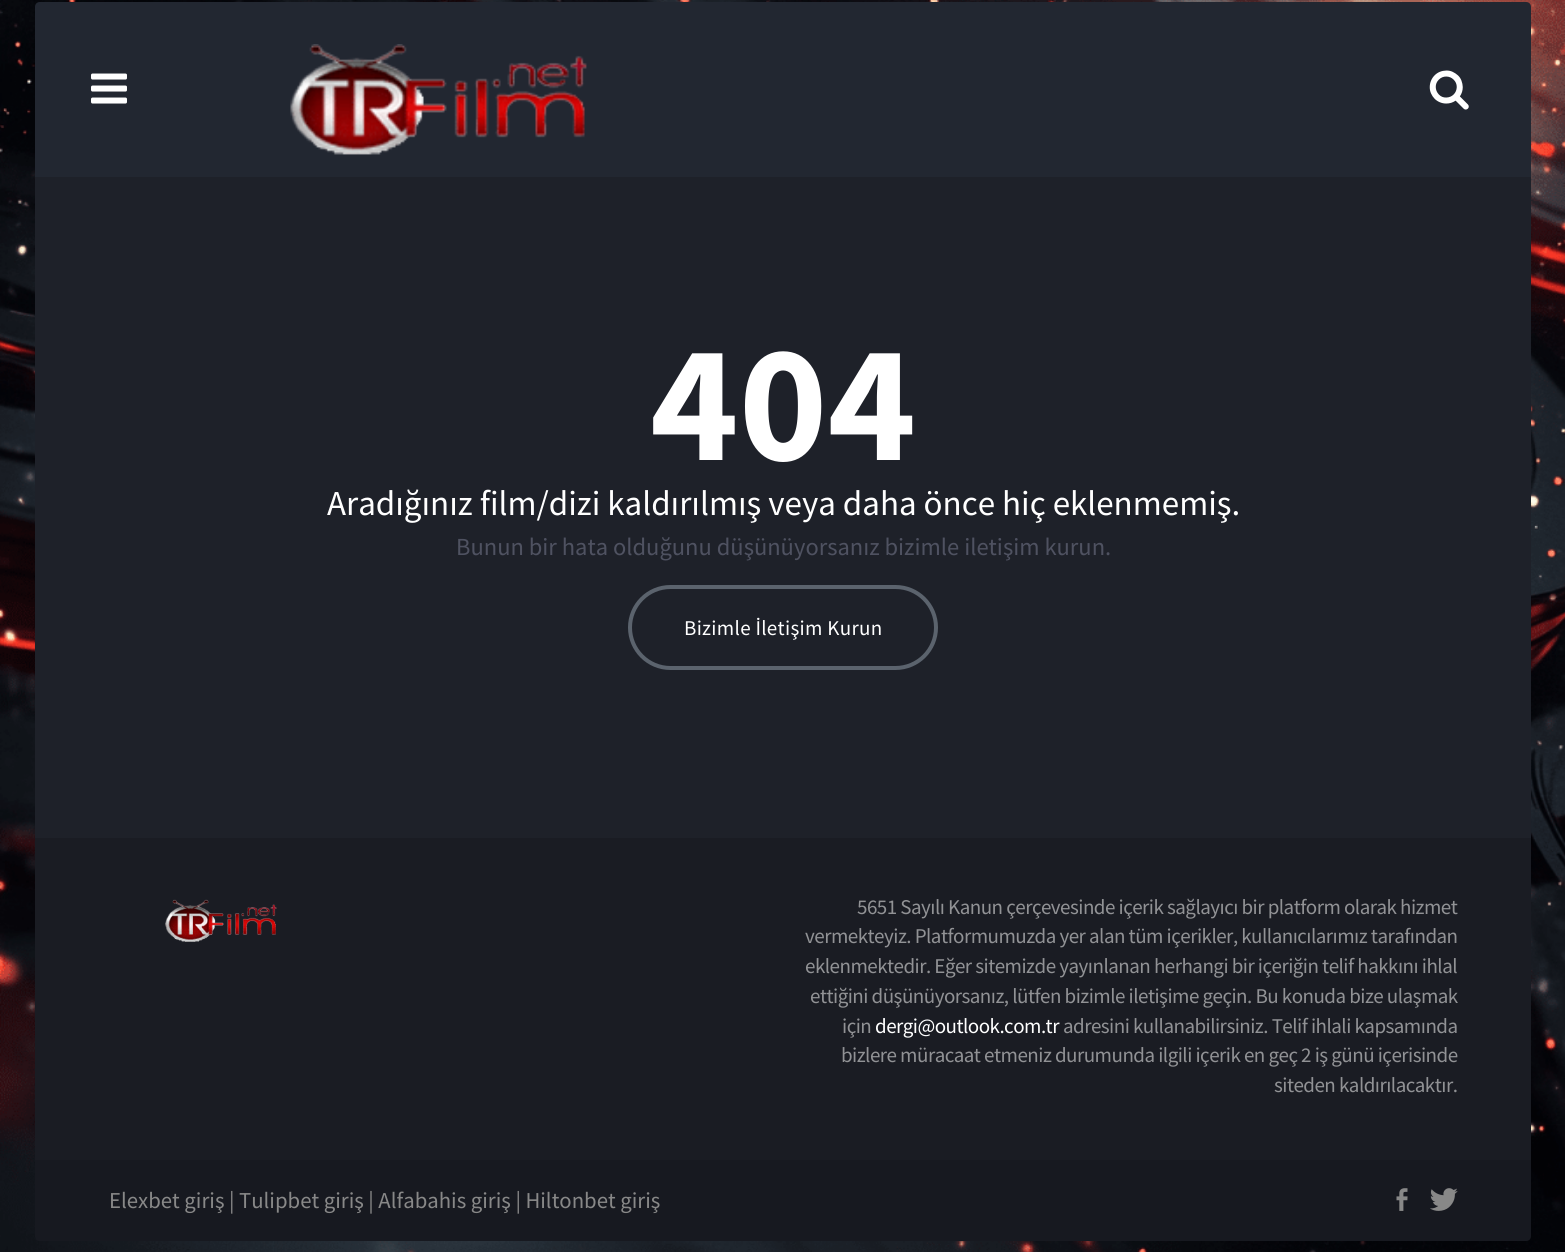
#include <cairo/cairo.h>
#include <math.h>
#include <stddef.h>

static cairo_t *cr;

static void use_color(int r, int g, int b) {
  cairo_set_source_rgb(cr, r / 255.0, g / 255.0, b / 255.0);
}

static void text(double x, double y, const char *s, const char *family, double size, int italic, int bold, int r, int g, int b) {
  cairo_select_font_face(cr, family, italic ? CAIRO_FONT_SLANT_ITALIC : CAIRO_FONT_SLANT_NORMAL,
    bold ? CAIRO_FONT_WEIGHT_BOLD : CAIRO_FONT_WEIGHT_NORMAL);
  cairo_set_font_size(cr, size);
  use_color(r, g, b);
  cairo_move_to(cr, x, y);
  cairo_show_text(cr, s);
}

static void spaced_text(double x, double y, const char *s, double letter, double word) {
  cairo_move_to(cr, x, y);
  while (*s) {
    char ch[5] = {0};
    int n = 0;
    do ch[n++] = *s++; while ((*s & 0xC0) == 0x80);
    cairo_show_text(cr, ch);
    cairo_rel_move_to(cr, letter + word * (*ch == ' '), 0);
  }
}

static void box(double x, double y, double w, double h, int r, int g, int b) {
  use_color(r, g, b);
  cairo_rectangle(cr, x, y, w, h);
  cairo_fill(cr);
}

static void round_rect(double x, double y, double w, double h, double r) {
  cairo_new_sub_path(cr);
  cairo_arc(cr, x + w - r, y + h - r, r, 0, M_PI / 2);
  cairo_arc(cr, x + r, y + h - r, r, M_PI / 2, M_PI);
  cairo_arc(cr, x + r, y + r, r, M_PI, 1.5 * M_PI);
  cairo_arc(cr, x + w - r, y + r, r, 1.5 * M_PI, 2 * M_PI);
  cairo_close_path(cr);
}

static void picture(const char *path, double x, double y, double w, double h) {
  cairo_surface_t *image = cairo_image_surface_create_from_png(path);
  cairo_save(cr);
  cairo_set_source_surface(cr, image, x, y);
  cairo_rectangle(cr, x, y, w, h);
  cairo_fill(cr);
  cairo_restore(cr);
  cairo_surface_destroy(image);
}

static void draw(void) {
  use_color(255, 255, 255);
  cairo_paint(cr);
  picture("img_01.png", 0, 0, 1565, 1252);
  use_color(34, 39, 49);
  cairo_new_path(cr);
  cairo_move_to(cr, 40, 2);
  cairo_line_to(cr, 1526, 2);
  cairo_curve_to(cr, 1529, 2, 1531, 4, 1531, 7);
  cairo_line_to(cr, 1531, 177);
  cairo_line_to(cr, 35, 177);
  cairo_line_to(cr, 35, 7);
  cairo_curve_to(cr, 35, 4, 37, 2, 40, 2);
  cairo_close_path(cr);
  cairo_fill(cr);
  picture("img_02.png", 91, 73, 36, 31);
  picture("img_03.png", 290, 44, 297, 111);
  picture("img_04.png", 1429, 70, 40, 40);
  box(35, 177, 1496, 661, 30, 33, 41);
  round_rect(630, 587, 306, 81, 40.5);
  use_color(91, 99, 109);
  cairo_set_line_width(cr, 4);
  cairo_stroke(cr);
  box(35, 838, 1496, 322, 26, 28, 35);
  picture("img_05.png", 165, 899, 112, 43);
  use_color(23, 25, 32);
  cairo_new_path(cr);
  cairo_move_to(cr, 35, 1160);
  cairo_line_to(cr, 1531, 1160);
  cairo_line_to(cr, 1531, 1236);
  cairo_curve_to(cr, 1531, 1239, 1529, 1241, 1526, 1241);
  cairo_line_to(cr, 40, 1241);
  cairo_curve_to(cr, 37, 1241, 35, 1239, 35, 1236);
  cairo_close_path(cr);
  cairo_fill(cr);
  picture("img_06.png", 1396, 1188, 12, 23);
  picture("img_07.png", 1430, 1188, 28, 23);
  text(650, 460, "404", "Source Sans Pro", 168, 0, 1, 255, 255, 255);
  text(327, 515, "Aradığınız film/dizi kaldırılmış veya daha önce hiç eklenmemiş.", "Source Sans Pro", 35, 0, 0, 255, 255, 255);
  text(456, 555, "Bunun bir hata olduğunu düşünüyorsanız bizimle iletişim kurun.", "Source Sans Pro", 24.5, 0, 0, 79, 82, 97);
  cairo_set_font_size(cr, 21);
  use_color(255, 255, 255);
  spaced_text(684, 635, "Bizimle İletişim Kurun", 0.3, 0);
  use_color(145, 146, 149);
  spaced_text(857, 914, "5651 Sayılı Kanun çerçevesinde içerik sağlayıcı bir platform olarak hizmet", -0.53, 0);
  spaced_text(805, 943, "vermekteyiz. Platformumuzda yer alan tüm içerikler, kullanıcılarımız tarafından", -0.53, 0);
  spaced_text(805, 973, "eklenmektedir. Eğer sitemizde yayınlanan herhangi bir içeriğin telif hakkını ihlal", -0.53, 0);
  spaced_text(810, 1003, "ettiğini düşünüyorsanız, lütfen bizimle iletişime geçin. Bu konuda bize ulaşmak", -0.53, 0);
  spaced_text(842, 1033, "için", -0.53, 0);
  use_color(255, 255, 255);
  spaced_text(875, 1033, "dergi@outlook.com.tr", -0.53, 0);
  use_color(145, 146, 149);
  spaced_text(1063, 1033, "adresini kullanabilirsiniz. Telif ihlali kapsamında", -0.53, 0);
  spaced_text(841, 1062, "bizlere müracaat etmeniz durumunda ilgili içerik en geç 2 iş günü içerisinde", -0.53, 0);
  spaced_text(1274, 1092, "siteden kaldırılacaktır.", -0.53, 0);
  text(109, 1208, "Elexbet giriş | Tulipbet giriş | Alfabahis giriş | Hiltonbet giriş", "Source Sans Pro", 22.75, 0, 0, 136, 136, 136);
}

int main(void) {
  cairo_surface_t *surface = cairo_image_surface_create(CAIRO_FORMAT_RGB24, 1565, 1252);
  cr = cairo_create(surface);
  cairo_font_options_t *options = cairo_font_options_create();
  cairo_font_options_set_hint_metrics(options, CAIRO_HINT_METRICS_OFF);
  cairo_font_options_set_hint_style(options, CAIRO_HINT_STYLE_NONE);
  cairo_set_font_options(cr, options);
  cairo_set_miter_limit(cr, 4);
  draw();
  cairo_surface_write_to_png(surface, "out.png");
  cairo_font_options_destroy(options);
  cairo_destroy(cr);
  cairo_surface_destroy(surface);
  return 0;
}
